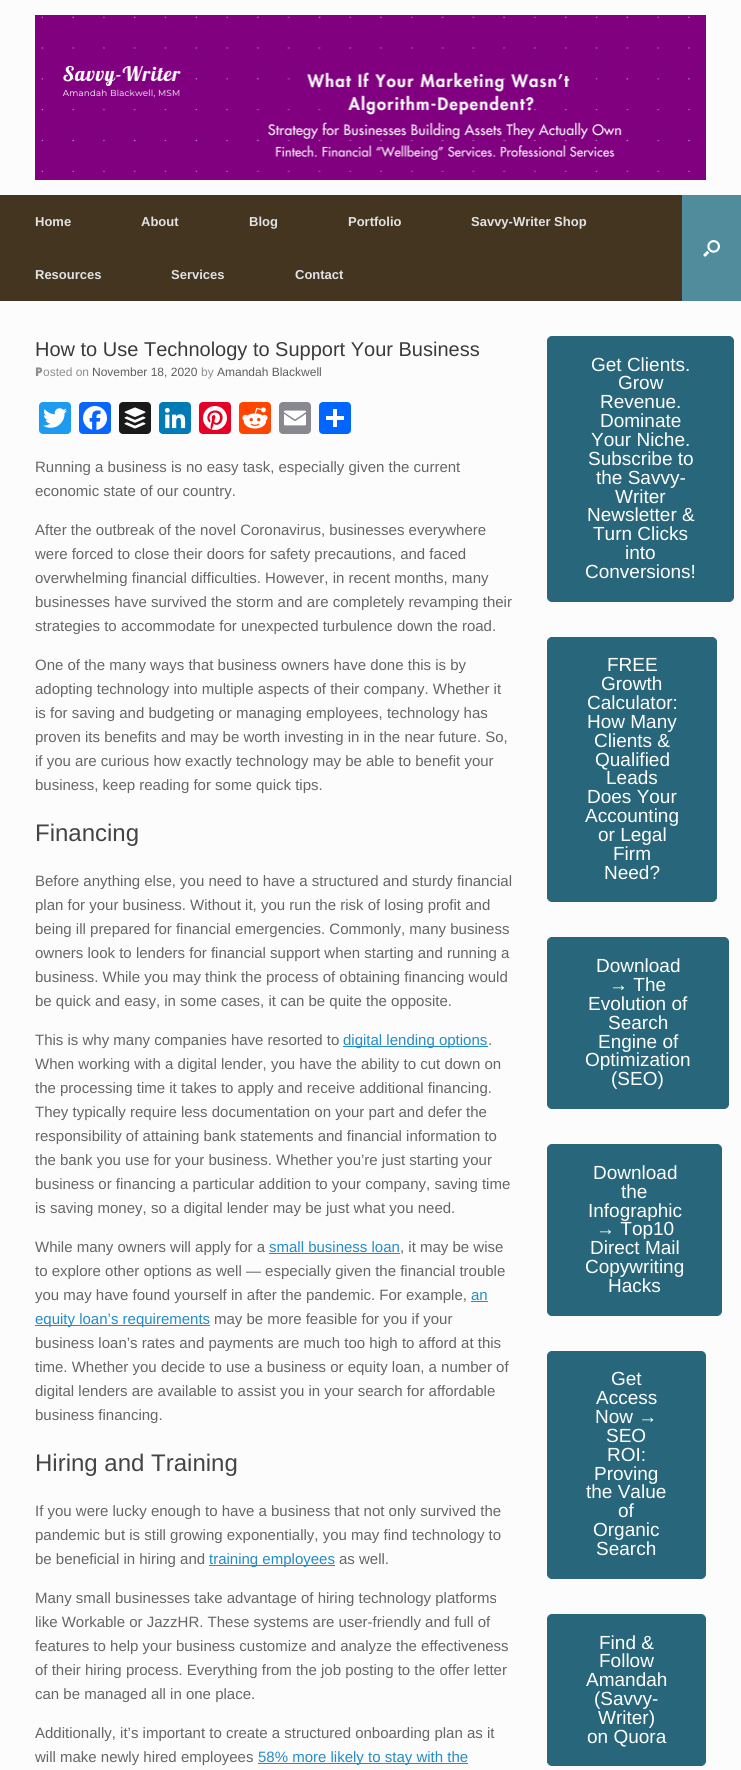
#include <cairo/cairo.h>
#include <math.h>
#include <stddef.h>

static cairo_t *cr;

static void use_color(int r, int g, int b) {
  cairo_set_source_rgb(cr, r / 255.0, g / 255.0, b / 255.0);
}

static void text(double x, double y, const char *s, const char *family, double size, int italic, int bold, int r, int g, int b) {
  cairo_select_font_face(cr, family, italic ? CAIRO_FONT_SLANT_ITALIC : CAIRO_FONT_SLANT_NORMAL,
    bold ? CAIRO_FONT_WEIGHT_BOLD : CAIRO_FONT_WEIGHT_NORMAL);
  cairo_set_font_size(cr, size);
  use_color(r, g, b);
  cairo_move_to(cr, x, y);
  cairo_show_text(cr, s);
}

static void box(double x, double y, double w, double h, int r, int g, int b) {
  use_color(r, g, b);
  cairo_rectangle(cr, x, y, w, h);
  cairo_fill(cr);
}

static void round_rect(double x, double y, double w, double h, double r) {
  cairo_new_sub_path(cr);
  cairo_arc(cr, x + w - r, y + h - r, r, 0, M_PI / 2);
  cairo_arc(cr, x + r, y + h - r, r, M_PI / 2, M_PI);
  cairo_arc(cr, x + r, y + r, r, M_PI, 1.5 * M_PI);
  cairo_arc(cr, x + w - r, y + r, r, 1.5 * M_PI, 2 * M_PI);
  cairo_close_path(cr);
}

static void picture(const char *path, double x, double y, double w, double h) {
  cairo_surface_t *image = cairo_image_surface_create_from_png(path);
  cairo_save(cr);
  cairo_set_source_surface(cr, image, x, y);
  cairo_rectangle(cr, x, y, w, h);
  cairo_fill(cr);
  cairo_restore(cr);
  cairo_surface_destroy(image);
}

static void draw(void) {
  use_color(252, 252, 252);
  cairo_paint(cr);
  picture("img_01.png", 35, 15, 671, 165);
  box(0, 195, 682, 106, 67, 53, 32);
  box(682, 195, 59, 106, 80, 140, 155);
  picture("img_02.png", 703, 240, 17, 17);
  use_color(29, 155, 240);
  round_rect(39, 402, 32, 32, 4);
  cairo_fill(cr);
  picture("img_03.png", 43, 408, 24, 20);
  use_color(8, 102, 255);
  round_rect(79, 402, 32, 32, 4);
  cairo_fill(cr);
  picture("img_04.png", 83, 406, 24, 24);
  use_color(26, 26, 26);
  round_rect(119, 402, 32, 32, 4);
  cairo_fill(cr);
  picture("img_05.png", 124, 407, 22, 22);
  use_color(0, 123, 181);
  round_rect(159, 402, 32, 32, 4);
  cairo_fill(cr);
  picture("img_06.png", 164, 407, 22, 22);
  use_color(230, 0, 35);
  round_rect(199, 402, 32, 32, 4);
  cairo_fill(cr);
  picture("img_07.png", 203, 406, 24, 24);
  use_color(255, 69, 0);
  round_rect(239, 402, 32, 32, 4);
  cairo_fill(cr);
  picture("img_08.png", 242, 407, 26, 22);
  use_color(136, 137, 144);
  round_rect(279, 402, 32, 32, 4);
  cairo_fill(cr);
  picture("img_09.png", 284, 410, 22, 16);
  use_color(1, 102, 255);
  round_rect(319, 402, 32, 32, 4);
  cairo_fill(cr);
  box(333, 409, 4, 18, 255, 255, 255);
  box(326, 416, 18, 4, 255, 255, 255);
  box(343, 1046, 145, 1, 36, 140, 200);
  box(269, 1253, 131, 1, 36, 140, 200);
  box(471, 1301, 17, 1, 36, 140, 200);
  box(35, 1325, 175, 1, 36, 140, 200);
  box(209, 1565, 126, 1, 36, 140, 200);
  box(258, 1763, 210, 1, 36, 140, 200);
  use_color(39, 102, 123);
  round_rect(547.5, 336.5, 186, 265, 4.5);
  cairo_fill_preserve(cr);
  cairo_set_line_width(cr, 1);
  cairo_stroke(cr);
  round_rect(547.5, 637.5, 169, 264, 4.5);
  cairo_fill_preserve(cr);
  cairo_stroke(cr);
  round_rect(547.5, 937.5, 181, 171, 4.5);
  cairo_fill_preserve(cr);
  cairo_stroke(cr);
  round_rect(547.5, 1144.5, 174, 171, 4.5);
  cairo_fill_preserve(cr);
  cairo_stroke(cr);
  round_rect(547.5, 1351.5, 158, 227, 4.5);
  cairo_fill_preserve(cr);
  cairo_stroke(cr);
  round_rect(547.5, 1614.5, 158, 151, 4.5);
  cairo_fill_preserve(cr);
  cairo_stroke(cr);
  text(35, 226, "Home", "Liberation Sans", 13, 0, 1, 226, 226, 226);
  text(141, 226, "About", "Liberation Sans", 13, 0, 1, 226, 226, 226);
  text(249, 226, "Blog", "Liberation Sans", 13, 0, 1, 226, 226, 226);
  text(348, 226, "Portfolio", "Liberation Sans", 13, 0, 1, 226, 226, 226);
  text(471, 226, "Savvy-Writer Shop", "Liberation Sans", 13, 0, 1, 226, 226, 226);
  text(35, 279, "Resources", "Liberation Sans", 13, 0, 1, 226, 226, 226);
  text(171, 279, "Services", "Liberation Sans", 13, 0, 1, 226, 226, 226);
  text(295, 279, "Contact", "Liberation Sans", 13, 0, 1, 226, 226, 226);
  text(35, 356, "How to Use Technology to Support Your Business", "Liberation Sans", 20, 0, 0, 59, 59, 59);
  text(35, 376, "P", "Noto Sans Black", 12, 0, 0, 143, 143, 143);
  text(43, 376, "osted on", "Liberation Sans", 12, 0, 0, 143, 143, 143);
  text(92, 376, "November 18, 2020", "Liberation Sans", 12, 0, 0, 94, 94, 94);
  text(201, 376, "by", "Liberation Sans", 12, 0, 0, 143, 143, 143);
  text(217, 376, "Amandah Blackwell", "Liberation Sans", 12, 0, 0, 94, 94, 94);
  text(35, 472, "Running a business is no easy task, especially given the current", "Liberation Sans", 15, 0, 0, 102, 102, 102);
  text(35, 496, "economic state of our country.", "Liberation Sans", 15, 0, 0, 102, 102, 102);
  text(35, 535, "After the outbreak of the novel Coronavirus, businesses everywhere", "Liberation Sans", 15, 0, 0, 102, 102, 102);
  text(35, 559, "were forced to close their doors for safety precautions, and faced", "Liberation Sans", 15, 0, 0, 102, 102, 102);
  text(35, 583, "overwhelming financial difficulties. However, in recent months, many", "Liberation Sans", 15, 0, 0, 102, 102, 102);
  text(35, 607, "businesses have survived the storm and are completely revamping their", "Liberation Sans", 15, 0, 0, 102, 102, 102);
  text(35, 631, "strategies to accommodate for unexpected turbulence down the road.", "Liberation Sans", 15, 0, 0, 102, 102, 102);
  text(35, 670, "One of the many ways that business owners have done this is by", "Liberation Sans", 15, 0, 0, 102, 102, 102);
  text(35, 694, "adopting technology into multiple aspects of their company. Whether it", "Liberation Sans", 15, 0, 0, 102, 102, 102);
  text(35, 718, "is for saving and budgeting or managing employees, technology has", "Liberation Sans", 15, 0, 0, 102, 102, 102);
  text(35, 742, "proven its benefits and may be worth investing in in the near future. So,", "Liberation Sans", 15, 0, 0, 102, 102, 102);
  text(35, 766, "if you are curious how exactly technology may be able to benefit your", "Liberation Sans", 15, 0, 0, 102, 102, 102);
  text(35, 790, "business, keep reading for some quick tips.", "Liberation Sans", 15, 0, 0, 102, 102, 102);
  text(35, 841, "Financing", "Liberation Sans", 24, 0, 0, 68, 68, 68);
  text(35, 886, "Before anything else, you need to have a structured and sturdy financial", "Liberation Sans", 15, 0, 0, 102, 102, 102);
  text(35, 910, "plan for your business. Without it, you run the risk of losing profit and", "Liberation Sans", 15, 0, 0, 102, 102, 102);
  text(35, 934, "being ill prepared for financial emergencies. Commonly, many business", "Liberation Sans", 15, 0, 0, 102, 102, 102);
  text(35, 958, "owners look to lenders for financial support when starting and running a", "Liberation Sans", 15, 0, 0, 102, 102, 102);
  text(35, 982, "business. While you may think the process of obtaining financing would", "Liberation Sans", 15, 0, 0, 102, 102, 102);
  text(35, 1006, "be quick and easy, in some cases, it can be quite the opposite.", "Liberation Sans", 15, 0, 0, 102, 102, 102);
  text(35, 1045, "This is why many companies have resorted to", "Liberation Sans", 15, 0, 0, 102, 102, 102);
  text(343, 1045, "digital lending options", "Liberation Sans", 15, 0, 0, 36, 140, 200);
  text(488, 1045, ".", "Liberation Sans", 15, 0, 0, 102, 102, 102);
  text(35, 1069, "When working with a digital lender, you have the ability to cut down on", "Liberation Sans", 15, 0, 0, 102, 102, 102);
  text(35, 1093, "the processing time it takes to apply and receive additional financing.", "Liberation Sans", 15, 0, 0, 102, 102, 102);
  text(35, 1117, "They typically require less documentation on your part and defer the", "Liberation Sans", 15, 0, 0, 102, 102, 102);
  text(35, 1141, "responsibility of attaining bank statements and financial information to", "Liberation Sans", 15, 0, 0, 102, 102, 102);
  text(35, 1165, "the bank you use for your business. Whether you’re just starting your", "Liberation Sans", 15, 0, 0, 102, 102, 102);
  text(35, 1189, "business or financing a particular addition to your company, saving time", "Liberation Sans", 15, 0, 0, 102, 102, 102);
  text(35, 1213, "is saving money, so a digital lender may be just what you need.", "Liberation Sans", 15, 0, 0, 102, 102, 102);
  text(35, 1252, "While many owners will apply for a", "Liberation Sans", 15, 0, 0, 102, 102, 102);
  text(269, 1252, "small business loan", "Liberation Sans", 15, 0, 0, 36, 140, 200);
  text(400, 1252, ", it may be wise", "Liberation Sans", 15, 0, 0, 102, 102, 102);
  text(35, 1276, "to explore other options as well — especially given the financial trouble", "Liberation Sans", 15, 0, 0, 102, 102, 102);
  text(35, 1300, "you may have found yourself in after the pandemic. For example,", "Liberation Sans", 15, 0, 0, 102, 102, 102);
  text(471, 1300, "an", "Liberation Sans", 15, 0, 0, 36, 140, 200);
  text(35, 1324, "equity loan’s requirements", "Liberation Sans", 15, 0, 0, 36, 140, 200);
  text(214, 1324, "may be more feasible for you if your", "Liberation Sans", 15, 0, 0, 102, 102, 102);
  text(35, 1348, "business loan’s rates and payments are much too high to afford at this", "Liberation Sans", 15, 0, 0, 102, 102, 102);
  text(35, 1372, "time. Whether you decide to use a business or equity loan, a number of", "Liberation Sans", 15, 0, 0, 102, 102, 102);
  text(35, 1396, "digital lenders are available to assist you in your search for affordable", "Liberation Sans", 15, 0, 0, 102, 102, 102);
  text(35, 1420, "business financing.", "Liberation Sans", 15, 0, 0, 102, 102, 102);
  text(35, 1471, "Hiring and Training", "Liberation Sans", 24, 0, 0, 68, 68, 68);
  text(35, 1516, "If you were lucky enough to have a business that not only survived the", "Liberation Sans", 15, 0, 0, 102, 102, 102);
  text(35, 1540, "pandemic but is still growing exponentially, you may find technology to", "Liberation Sans", 15, 0, 0, 102, 102, 102);
  text(35, 1564, "be beneficial in hiring and", "Liberation Sans", 15, 0, 0, 102, 102, 102);
  text(209, 1564, "training employees", "Liberation Sans", 15, 0, 0, 36, 140, 200);
  text(339, 1564, "as well.", "Liberation Sans", 15, 0, 0, 102, 102, 102);
  text(35, 1603, "Many small businesses take advantage of hiring technology platforms", "Liberation Sans", 15, 0, 0, 102, 102, 102);
  text(35, 1627, "like Workable or JazzHR. These systems are user-friendly and full of", "Liberation Sans", 15, 0, 0, 102, 102, 102);
  text(35, 1651, "features to help your business customize and analyze the effectiveness", "Liberation Sans", 15, 0, 0, 102, 102, 102);
  text(35, 1675, "of their hiring process. Everything from the job posting to the offer letter", "Liberation Sans", 15, 0, 0, 102, 102, 102);
  text(35, 1699, "can be managed all in one place.", "Liberation Sans", 15, 0, 0, 102, 102, 102);
  text(35, 1738, "Additionally, it’s important to create a structured onboarding plan as it", "Liberation Sans", 15, 0, 0, 102, 102, 102);
  text(35, 1762, "will make newly hired employees", "Liberation Sans", 15, 0, 0, 102, 102, 102);
  text(258, 1762, "58% more likely to stay with the", "Liberation Sans", 15, 0, 0, 36, 140, 200);
  text(591, 371, "Get Clients.", "Liberation Sans", 19, 0, 0, 255, 255, 255);
  text(618, 389, "Grow", "Liberation Sans", 19, 0, 0, 255, 255, 255);
  text(600, 408, "Revenue.", "Liberation Sans", 19, 0, 0, 255, 255, 255);
  text(600, 427, "Dominate", "Liberation Sans", 19, 0, 0, 255, 255, 255);
  text(591, 446, "Your Niche.", "Liberation Sans", 19, 0, 0, 255, 255, 255);
  text(588, 465, "Subscribe to", "Liberation Sans", 19, 0, 0, 255, 255, 255);
  text(596, 484, "the Savvy-", "Liberation Sans", 19, 0, 0, 255, 255, 255);
  text(615, 503, "Writer", "Liberation Sans", 19, 0, 0, 255, 255, 255);
  text(587, 521, "Newsletter &", "Liberation Sans", 19, 0, 0, 255, 255, 255);
  text(593, 540, "Turn Clicks", "Liberation Sans", 19, 0, 0, 255, 255, 255);
  text(625, 559, "into", "Liberation Sans", 19, 0, 0, 255, 255, 255);
  text(585, 578, "Conversions!", "Liberation Sans", 19, 0, 0, 255, 255, 255);
  text(607, 671, "FREE", "Liberation Sans", 19, 0, 0, 255, 255, 255);
  text(601, 690, "Growth", "Liberation Sans", 19, 0, 0, 255, 255, 255);
  text(587, 709, "Calculator:", "Liberation Sans", 19, 0, 0, 255, 255, 255);
  text(587, 728, "How Many", "Liberation Sans", 19, 0, 0, 255, 255, 255);
  text(594, 747, "Clients &", "Liberation Sans", 19, 0, 0, 255, 255, 255);
  text(595, 766, "Qualified", "Liberation Sans", 19, 0, 0, 255, 255, 255);
  text(606, 784, "Leads", "Liberation Sans", 19, 0, 0, 255, 255, 255);
  text(587, 803, "Does Your", "Liberation Sans", 19, 0, 0, 255, 255, 255);
  text(585, 822, "Accounting", "Liberation Sans", 19, 0, 0, 255, 255, 255);
  text(598, 841, "or Legal", "Liberation Sans", 19, 0, 0, 255, 255, 255);
  text(613, 860, "Firm", "Liberation Sans", 19, 0, 0, 255, 255, 255);
  text(604, 879, "Need?", "Liberation Sans", 19, 0, 0, 255, 255, 255);
  text(596, 972, "Download", "Liberation Sans", 19, 0, 0, 255, 255, 255);
  text(609, 991, "→ The", "Liberation Sans", 19, 0, 0, 255, 255, 255);
  text(588, 1010, "Evolution of", "Liberation Sans", 19, 0, 0, 255, 255, 255);
  text(608, 1029, "Search", "Liberation Sans", 19, 0, 0, 255, 255, 255);
  text(598, 1048, "Engine of", "Liberation Sans", 19, 0, 0, 255, 255, 255);
  text(585, 1066, "Optimization", "Liberation Sans", 19, 0, 0, 255, 255, 255);
  text(611, 1085, "(SEO)", "Liberation Sans", 19, 0, 0, 255, 255, 255);
  text(593, 1179, "Download", "Liberation Sans", 19, 0, 0, 255, 255, 255);
  text(621, 1198, "the", "Liberation Sans", 19, 0, 0, 255, 255, 255);
  text(588, 1217, "Infographic", "Liberation Sans", 19, 0, 0, 255, 255, 255);
  text(596, 1235, "→ Top10", "Liberation Sans", 19, 0, 0, 255, 255, 255);
  text(590, 1254, "Direct Mail", "Liberation Sans", 19, 0, 0, 255, 255, 255);
  text(585, 1273, "Copywriting", "Liberation Sans", 19, 0, 0, 255, 255, 255);
  text(608, 1292, "Hacks", "Liberation Sans", 19, 0, 0, 255, 255, 255);
  text(611, 1385, "Get", "Liberation Sans", 19, 0, 0, 255, 255, 255);
  text(596, 1404, "Access", "Liberation Sans", 19, 0, 0, 255, 255, 255);
  text(595, 1423, "Now →", "Liberation Sans", 19, 0, 0, 255, 255, 255);
  text(606, 1442, "SEO", "Liberation Sans", 19, 0, 0, 255, 255, 255);
  text(607, 1461, "ROI:", "Liberation Sans", 19, 0, 0, 255, 255, 255);
  text(594, 1480, "Proving", "Liberation Sans", 19, 0, 0, 255, 255, 255);
  text(586, 1498, "the Value", "Liberation Sans", 19, 0, 0, 255, 255, 255);
  text(618, 1517, "of", "Liberation Sans", 19, 0, 0, 255, 255, 255);
  text(593, 1536, "Organic", "Liberation Sans", 19, 0, 0, 255, 255, 255);
  text(596, 1555, "Search", "Liberation Sans", 19, 0, 0, 255, 255, 255);
  text(599, 1649, "Find &", "Liberation Sans", 19, 0, 0, 255, 255, 255);
  text(599, 1667, "Follow", "Liberation Sans", 19, 0, 0, 255, 255, 255);
  text(586, 1686, "Amandah", "Liberation Sans", 19, 0, 0, 255, 255, 255);
  text(594, 1705, "(Savvy-", "Liberation Sans", 19, 0, 0, 255, 255, 255);
  text(598, 1724, "Writer)", "Liberation Sans", 19, 0, 0, 255, 255, 255);
  text(587, 1743, "on Quora", "Liberation Sans", 19, 0, 0, 255, 255, 255);
}

int main(void) {
  cairo_surface_t *surface = cairo_image_surface_create(CAIRO_FORMAT_RGB24, 741, 1770);
  cr = cairo_create(surface);
  cairo_font_options_t *options = cairo_font_options_create();
  cairo_font_options_set_hint_metrics(options, CAIRO_HINT_METRICS_OFF);
  cairo_font_options_set_hint_style(options, CAIRO_HINT_STYLE_NONE);
  cairo_set_font_options(cr, options);
  cairo_set_miter_limit(cr, 4);
  draw();
  cairo_surface_write_to_png(surface, "out.png");
  cairo_font_options_destroy(options);
  cairo_destroy(cr);
  cairo_surface_destroy(surface);
  return 0;
}
